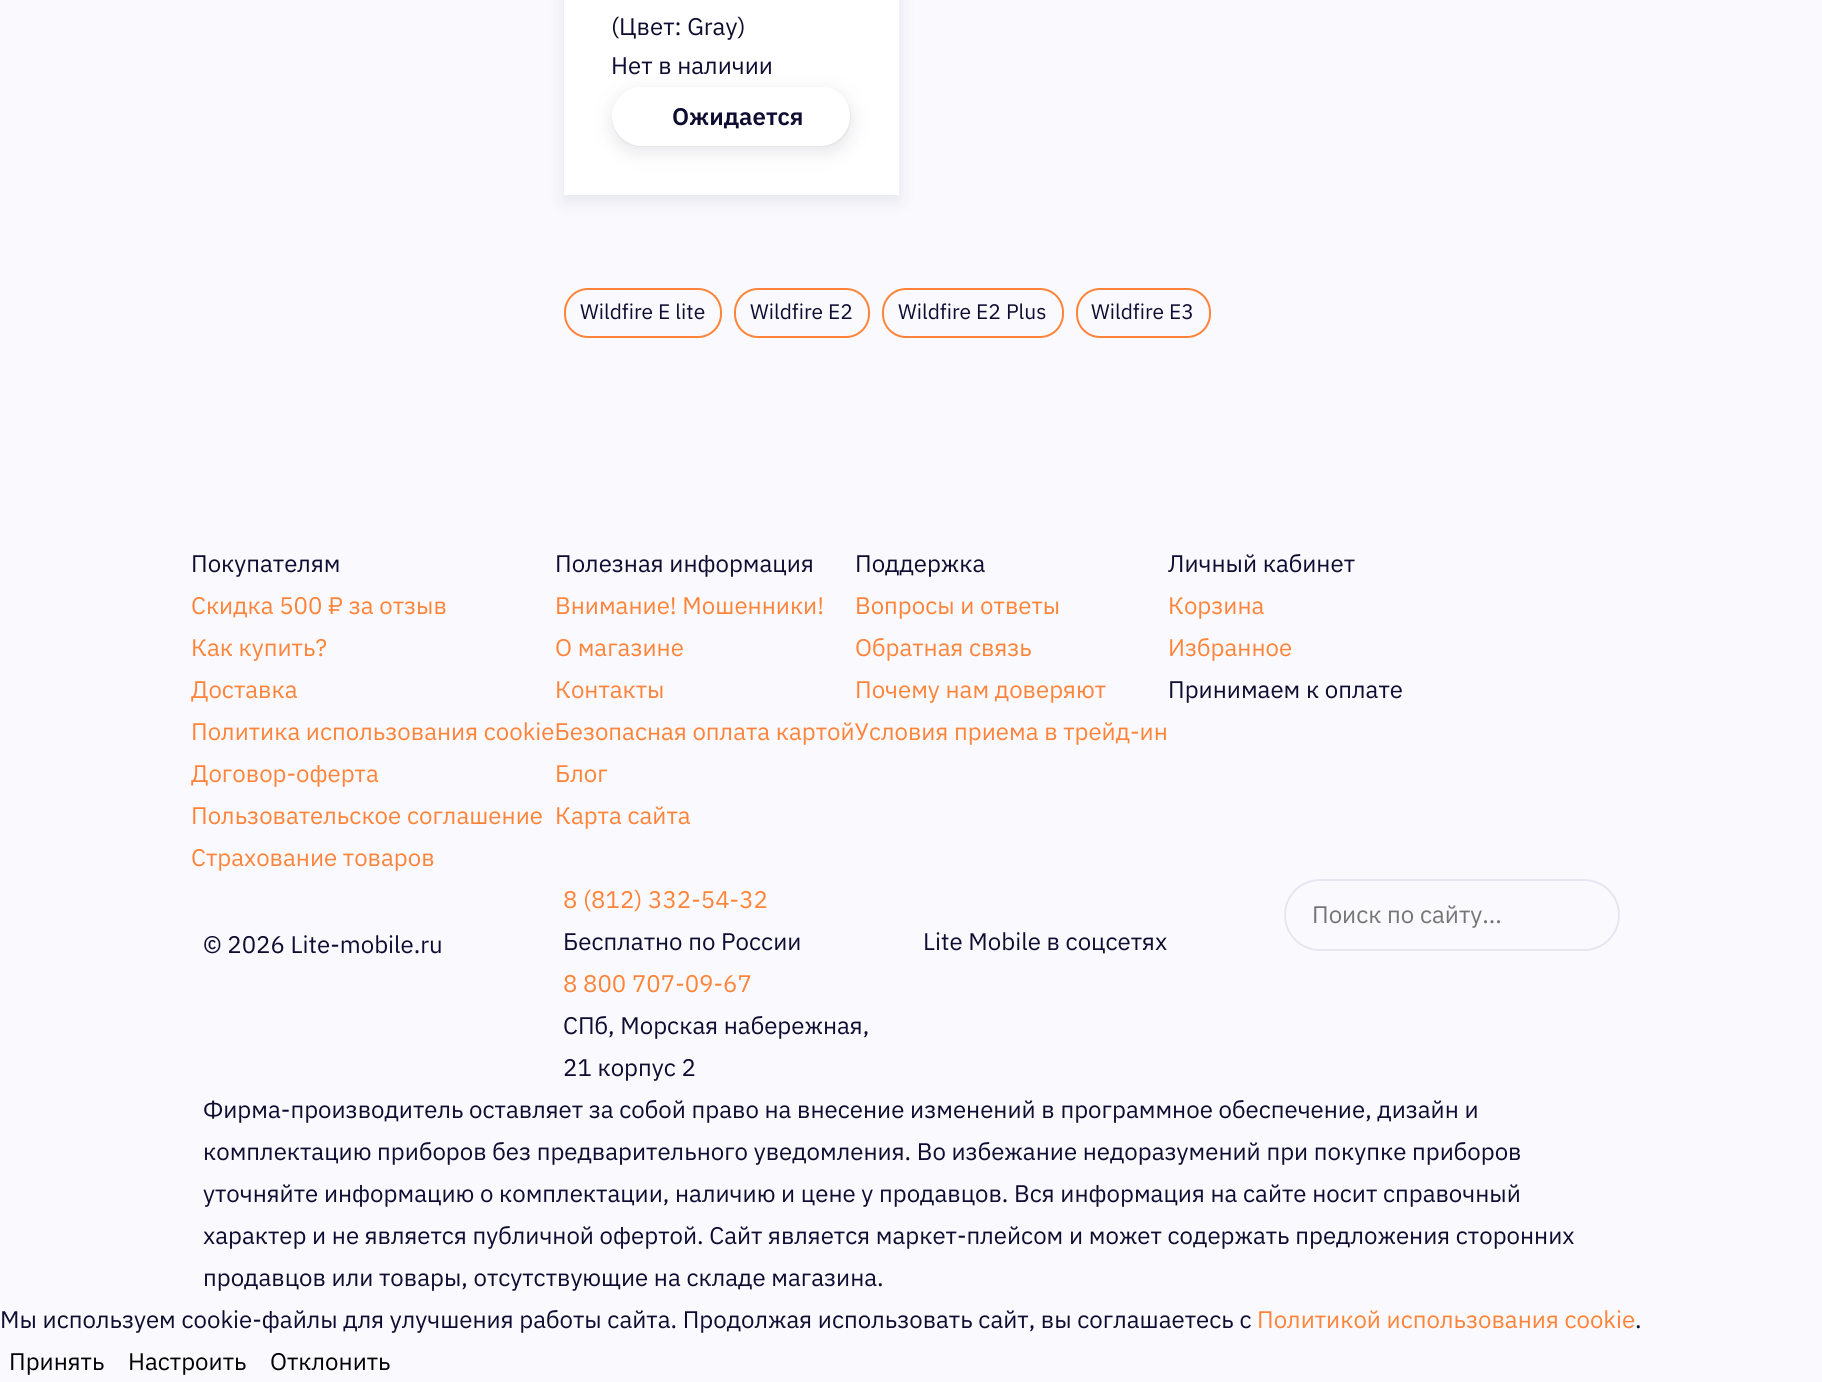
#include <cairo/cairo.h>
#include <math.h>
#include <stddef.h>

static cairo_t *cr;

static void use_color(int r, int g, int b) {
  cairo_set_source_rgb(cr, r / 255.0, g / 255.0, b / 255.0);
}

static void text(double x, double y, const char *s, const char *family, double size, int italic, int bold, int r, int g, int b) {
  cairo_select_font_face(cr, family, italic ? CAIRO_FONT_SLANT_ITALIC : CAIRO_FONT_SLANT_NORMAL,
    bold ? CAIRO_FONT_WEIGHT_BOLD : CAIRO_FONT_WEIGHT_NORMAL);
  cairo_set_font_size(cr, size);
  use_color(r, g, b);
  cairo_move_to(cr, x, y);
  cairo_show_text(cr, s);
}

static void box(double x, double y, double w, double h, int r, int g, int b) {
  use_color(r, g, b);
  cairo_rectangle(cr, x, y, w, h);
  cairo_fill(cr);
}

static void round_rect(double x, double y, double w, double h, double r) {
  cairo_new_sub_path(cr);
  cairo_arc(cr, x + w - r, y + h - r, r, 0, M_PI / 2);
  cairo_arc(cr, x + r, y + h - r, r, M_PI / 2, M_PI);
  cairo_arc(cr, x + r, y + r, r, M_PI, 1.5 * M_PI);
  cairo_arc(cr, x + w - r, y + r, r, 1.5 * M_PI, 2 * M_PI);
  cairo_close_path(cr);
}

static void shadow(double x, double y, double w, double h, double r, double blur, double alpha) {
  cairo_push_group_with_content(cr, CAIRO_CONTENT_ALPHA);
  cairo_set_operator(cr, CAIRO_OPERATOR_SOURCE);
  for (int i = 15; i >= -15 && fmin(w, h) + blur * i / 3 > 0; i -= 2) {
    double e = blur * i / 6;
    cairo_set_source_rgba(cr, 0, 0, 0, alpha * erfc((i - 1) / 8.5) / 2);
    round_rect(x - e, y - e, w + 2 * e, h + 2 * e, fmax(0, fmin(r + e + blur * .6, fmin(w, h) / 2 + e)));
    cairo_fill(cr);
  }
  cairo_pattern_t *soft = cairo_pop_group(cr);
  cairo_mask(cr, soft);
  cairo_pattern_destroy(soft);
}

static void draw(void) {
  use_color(250, 250, 254);
  cairo_paint(cr);
  use_color(111, 113, 139);
  shadow(564, -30, 335, 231, 0, 10, 0.15);
  box(564, 0, 335, 195, 255, 255, 255);
  use_color(115, 117, 136);
  shadow(612, 92, 239, 60, 30, 9, 0.18);
  use_color(255, 255, 255);
  round_rect(612, 87, 239, 60, 30);
  cairo_fill(cr);
  cairo_set_source_rgba(cr, 0.11, 0.114, 0.125, 0.1);
  cairo_new_path(cr);
  cairo_move_to(cr, 612, 116);
  cairo_line_to(cr, 612, 117);
  cairo_curve_to(cr, 612, 134, 625, 147, 642, 147);
  cairo_line_to(cr, 821, 147);
  cairo_curve_to(cr, 838, 147, 851, 134, 851, 117);
  cairo_curve_to(cr, 851, 110, 849, 104, 845, 99);
  cairo_curve_to(cr, 848, 103, 850, 109, 850, 116);
  cairo_curve_to(cr, 850, 132, 837, 146, 820, 146);
  cairo_line_to(cr, 642, 146);
  cairo_curve_to(cr, 625, 146, 612, 132, 612, 116);
  cairo_close_path(cr);
  cairo_fill(cr);
  round_rect(565, 289, 156, 48, 23);
  use_color(255, 131, 57);
  cairo_stroke(cr);
  round_rect(735, 289, 134, 48, 23);
  cairo_stroke(cr);
  round_rect(883, 289, 180, 48, 23);
  cairo_stroke(cr);
  round_rect(1077, 289, 133, 48, 23);
  cairo_stroke(cr);
  round_rect(1285, 880, 334, 70, 35);
  use_color(229, 230, 240);
  cairo_stroke(cr);
  text(611, 35, "(Цвет: Gray)", "IBM Plex Sans", 24, 0, 0, 14, 12, 49);
  text(611, 74, "Нет в наличии", "IBM Plex Sans", 24, 0, 0, 14, 12, 49);
  text(672, 125, "Ожидается", "IBM Plex Sans SemiBold", 24, 0, 0, 14, 12, 49);
  text(580, 319, "Wildfire E lite", "IBM Plex Sans", 21, 0, 0, 14, 12, 49);
  text(750, 319, "Wildfire E2", "IBM Plex Sans", 21, 0, 0, 14, 12, 49);
  text(898, 319, "Wildfire E2 Plus", "IBM Plex Sans", 21, 0, 0, 14, 12, 49);
  text(1091, 319, "Wildfire E3", "IBM Plex Sans", 21, 0, 0, 14, 12, 49);
  text(555, 572, "Полезная информация", "IBM Plex Sans", 24, 0, 0, 14, 12, 49);
  text(555, 614, "Внимание! Мошенники!", "IBM Plex Sans", 24, 0, 0, 255, 131, 57);
  text(555, 656, "О магазине", "IBM Plex Sans", 24, 0, 0, 255, 131, 57);
  text(555, 698, "Контакты", "IBM Plex Sans", 24, 0, 0, 255, 131, 57);
  text(555, 782, "Блог", "IBM Plex Sans", 24, 0, 0, 255, 131, 57);
  text(555, 824, "Карта сайта", "IBM Plex Sans", 24, 0, 0, 255, 131, 57);
  text(1168, 572, "Личный кабинет", "IBM Plex Sans", 24, 0, 0, 14, 12, 49);
  text(1168, 614, "Корзина", "IBM Plex Sans", 24, 0, 0, 255, 131, 57);
  text(1168, 656, "Избранное", "IBM Plex Sans", 24, 0, 0, 255, 131, 57);
  text(1168, 698, "Принимаем к оплате", "IBM Plex Sans", 24, 0, 0, 14, 12, 49);
  text(191, 572, "Покупателям", "IBM Plex Sans", 24, 0, 0, 14, 12, 49);
  text(191, 614, "Скидка 500 ₽ за отзыв", "IBM Plex Sans", 24, 0, 0, 255, 131, 57);
  text(191, 656, "Как купить?", "IBM Plex Sans", 24, 0, 0, 255, 131, 57);
  text(191, 698, "Доставка", "IBM Plex Sans", 24, 0, 0, 255, 131, 57);
  text(191, 740, "Политика использования cookieБезопасная оплата картойУсловия приема в трейд-ин", "IBM Plex Sans", 24, 0, 0, 255, 131, 57);
  text(191, 782, "Договор-оферта", "IBM Plex Sans", 24, 0, 0, 255, 131, 57);
  text(191, 824, "Пользовательское соглашение", "IBM Plex Sans", 24, 0, 0, 255, 131, 57);
  text(191, 866, "Страхование товаров", "IBM Plex Sans", 24, 0, 0, 255, 131, 57);
  text(855, 572, "Поддержка", "IBM Plex Sans", 24, 0, 0, 14, 12, 49);
  text(855, 614, "Вопросы и ответы", "IBM Plex Sans", 24, 0, 0, 255, 131, 57);
  text(855, 656, "Обратная связь", "IBM Plex Sans", 24, 0, 0, 255, 131, 57);
  text(855, 698, "Почему нам доверяют", "IBM Plex Sans", 24, 0, 0, 255, 131, 57);
  text(563, 908, "8 (812) 332-54-32", "IBM Plex Sans", 24, 0, 0, 255, 131, 57);
  text(563, 950, "Бесплатно по России", "IBM Plex Sans", 24, 0, 0, 14, 12, 49);
  text(563, 992, "8 800 707-09-67", "IBM Plex Sans", 24, 0, 0, 255, 131, 57);
  text(563, 1034, "СПб, Морская набережная,", "IBM Plex Sans", 24, 0, 0, 14, 12, 49);
  text(563, 1076, "21 корпус 2", "IBM Plex Sans", 24, 0, 0, 14, 12, 49);
  text(1312, 923, "Поиск по сайту...", "IBM Plex Sans", 24, 0, 0, 117, 117, 117);
  text(203, 953, "© 2026 Lite-mobile.ru", "IBM Plex Sans", 24, 0, 0, 14, 12, 49);
  text(923, 950, "Lite Mobile в соцсетях", "IBM Plex Sans", 24, 0, 0, 14, 12, 49);
  text(203, 1118, "Фирма-производитель оставляет за собой право на внесение изменений в программное обеспечение, дизайн и", "IBM Plex Sans", 24, 0, 0, 14, 12, 49);
  text(203, 1160, "комплектацию приборов без предварительного уведомления. Во избежание недоразумений при покупке приборов", "IBM Plex Sans", 24, 0, 0, 14, 12, 49);
  text(203, 1202, "уточняйте информацию о комплектации, наличию и цене у продавцов. Вся информация на сайте носит справочный", "IBM Plex Sans", 24, 0, 0, 14, 12, 49);
  text(203, 1244, "характер и не является публичной офертой. Сайт является маркет-плейсом и может содержать предложения сторонних", "IBM Plex Sans", 24, 0, 0, 14, 12, 49);
  text(203, 1286, "продавцов или товары, отсутствующие на складе магазина.", "IBM Plex Sans", 24, 0, 0, 14, 12, 49);
  text(0, 1328, "Мы используем cookie-файлы для улучшения работы сайта. Продолжая использовать сайт, вы соглашаетесь с", "IBM Plex Sans", 24, 0, 0, 14, 12, 49);
  text(1257, 1328, "Политикой использования cookie", "IBM Plex Sans", 24, 0, 0, 255, 131, 57);
  text(1635, 1328, ".", "IBM Plex Sans", 24, 0, 0, 14, 12, 49);
  text(9, 1370, "Принять", "IBM Plex Sans", 24, 0, 0, 0, 0, 0);
  text(128, 1370, "Настроить", "IBM Plex Sans", 24, 0, 0, 0, 0, 0);
  text(270, 1370, "Отклонить", "IBM Plex Sans", 24, 0, 0, 0, 0, 0);
}

int main(void) {
  cairo_surface_t *surface = cairo_image_surface_create(CAIRO_FORMAT_RGB24, 1822, 1382);
  cr = cairo_create(surface);
  cairo_font_options_t *options = cairo_font_options_create();
  cairo_font_options_set_hint_metrics(options, CAIRO_HINT_METRICS_OFF);
  cairo_font_options_set_hint_style(options, CAIRO_HINT_STYLE_NONE);
  cairo_set_font_options(cr, options);
  cairo_set_miter_limit(cr, 4);
  draw();
  cairo_surface_write_to_png(surface, "out.png");
  cairo_font_options_destroy(options);
  cairo_destroy(cr);
  cairo_surface_destroy(surface);
  return 0;
}
